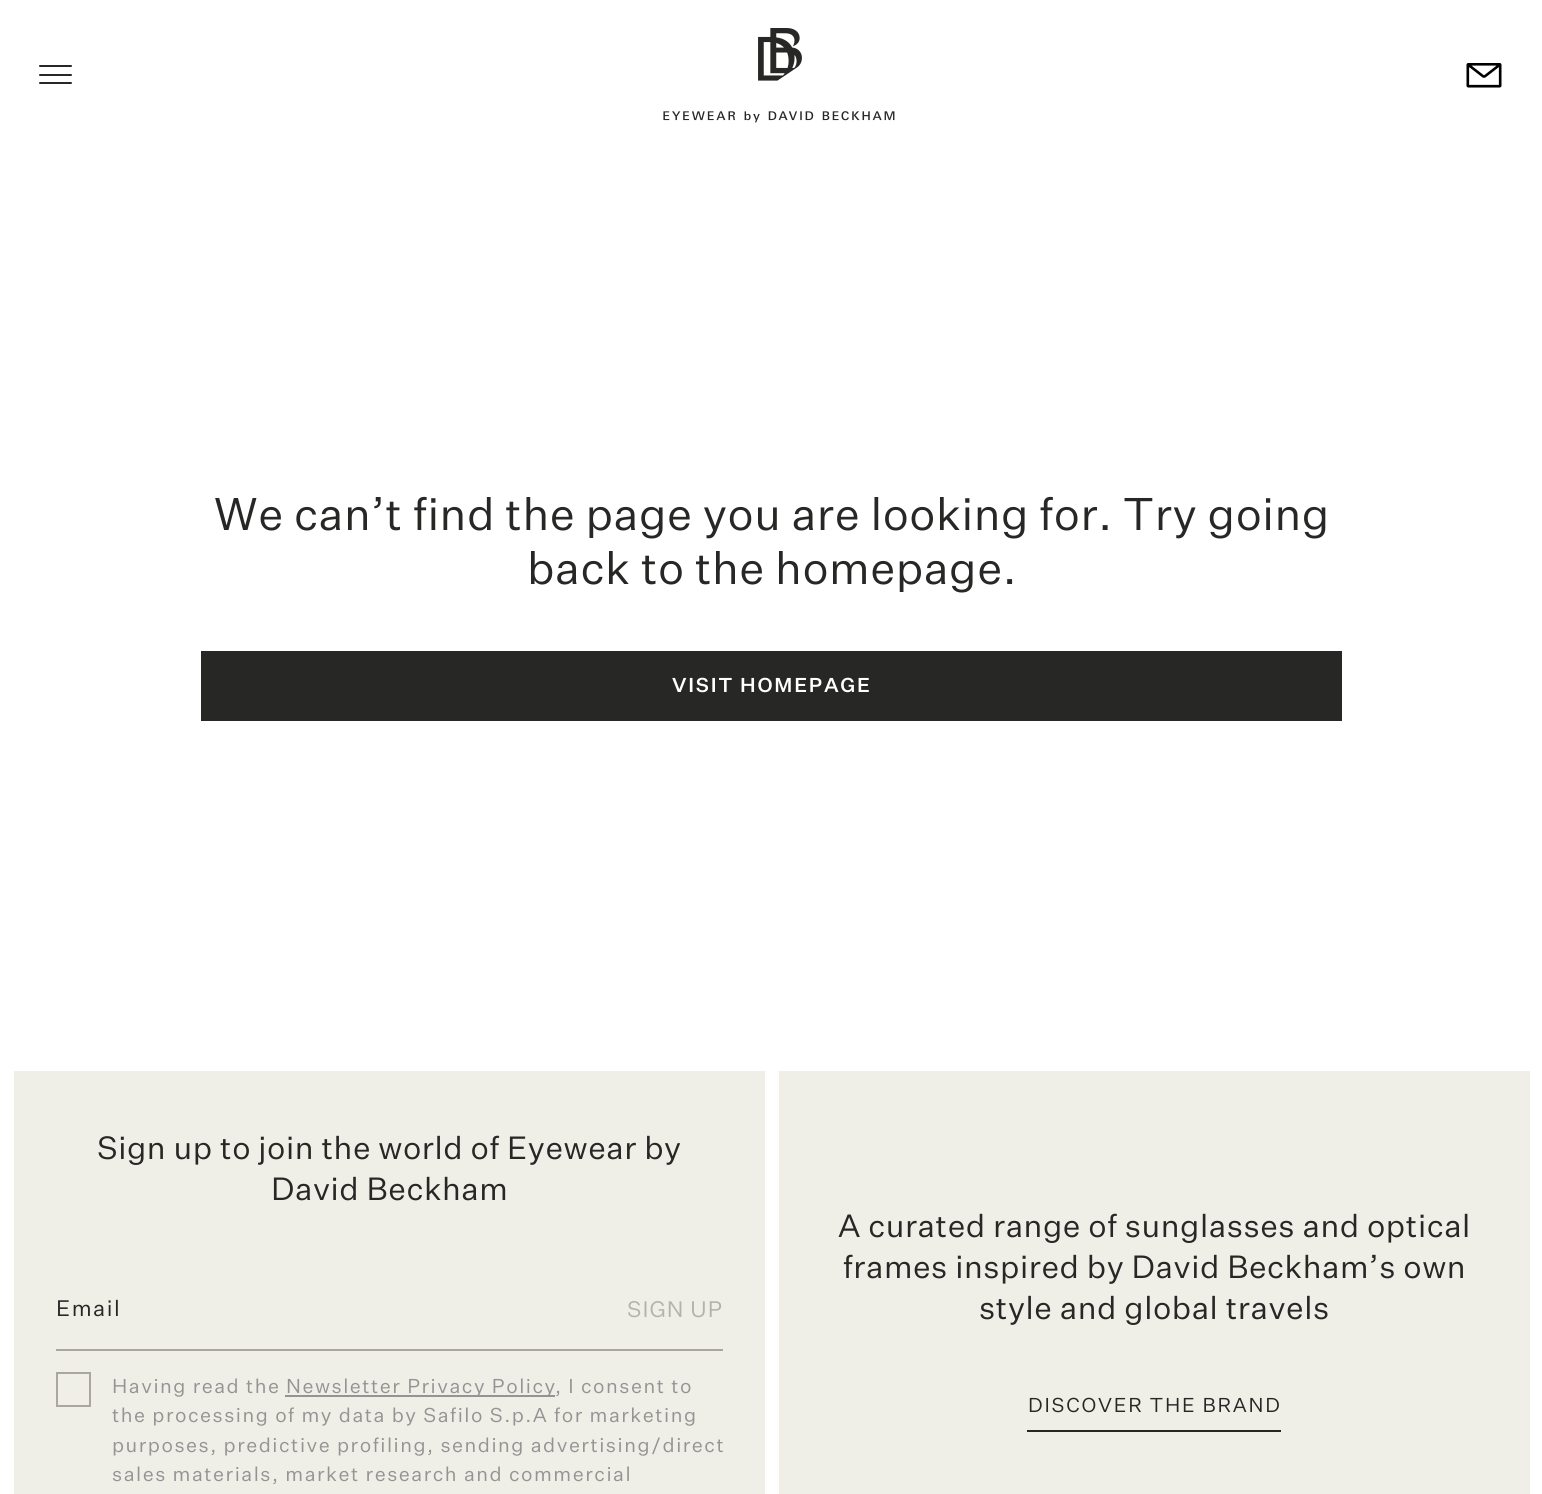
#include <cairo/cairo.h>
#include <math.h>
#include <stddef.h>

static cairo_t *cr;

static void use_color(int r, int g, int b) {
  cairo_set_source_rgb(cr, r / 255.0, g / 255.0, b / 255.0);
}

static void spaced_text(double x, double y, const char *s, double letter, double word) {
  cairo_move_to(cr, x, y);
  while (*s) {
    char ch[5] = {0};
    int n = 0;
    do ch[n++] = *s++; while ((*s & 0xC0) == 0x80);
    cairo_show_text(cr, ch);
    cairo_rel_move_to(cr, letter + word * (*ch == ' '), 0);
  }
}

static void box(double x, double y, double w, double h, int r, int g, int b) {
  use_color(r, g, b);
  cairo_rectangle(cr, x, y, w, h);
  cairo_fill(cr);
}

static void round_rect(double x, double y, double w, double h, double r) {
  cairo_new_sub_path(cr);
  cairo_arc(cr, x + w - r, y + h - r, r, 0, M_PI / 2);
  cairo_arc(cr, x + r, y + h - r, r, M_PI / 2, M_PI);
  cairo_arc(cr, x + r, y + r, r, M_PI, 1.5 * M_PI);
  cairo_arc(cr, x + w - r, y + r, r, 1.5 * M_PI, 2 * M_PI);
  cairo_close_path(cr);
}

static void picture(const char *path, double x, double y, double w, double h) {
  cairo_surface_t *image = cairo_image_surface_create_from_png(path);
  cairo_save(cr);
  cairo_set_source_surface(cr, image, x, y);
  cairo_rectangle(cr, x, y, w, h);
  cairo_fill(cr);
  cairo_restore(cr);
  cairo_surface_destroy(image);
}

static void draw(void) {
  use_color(255, 255, 255);
  cairo_paint(cr);
  use_color(39, 39, 38);
  round_rect(39, 65, 33, 2, 1);
  cairo_fill(cr);
  round_rect(39, 74, 33, 2, 1);
  cairo_fill(cr);
  round_rect(39, 82, 33, 2, 1);
  cairo_fill(cr);
  picture("img_01.png", 663, 28, 232, 95);
  picture("img_02.png", 1466, 63, 36, 25);
  box(201, 651, 1141, 70, 39, 39, 38);
  box(14, 1071, 751, 423, 239, 238, 231);
  box(56, 1349, 667, 2, 169, 167, 159);
  cairo_rectangle(cr, 57, 1373, 33, 33);
  cairo_stroke(cr);
  box(285, 1395, 270, 2, 148, 148, 148);
  box(779, 1071, 751, 423, 239, 238, 231);
  box(1027, 1430, 254, 2, 39, 39, 38);
  cairo_select_font_face(cr, "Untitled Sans", CAIRO_FONT_SLANT_NORMAL, CAIRO_FONT_WEIGHT_NORMAL);
  cairo_set_font_size(cr, 44.85);
  spaced_text(214, 530, "We can’t find the page you are looking for. Try going", 0.53, 0);
  spaced_text(527, 584, "back to the homepage.", 0.53, 0);
  cairo_select_font_face(cr, "Untitled Sans Medium", CAIRO_FONT_SLANT_NORMAL, CAIRO_FONT_WEIGHT_NORMAL);
  cairo_set_font_size(cr, 19.7);
  use_color(255, 255, 255);
  spaced_text(672, 692, "VISIT HOMEPAGE", 1.75, 0);
  cairo_select_font_face(cr, "Untitled Sans", CAIRO_FONT_SLANT_NORMAL, CAIRO_FONT_WEIGHT_NORMAL);
  cairo_set_font_size(cr, 31.5);
  use_color(39, 39, 38);
  spaced_text(97, 1159, "Sign up to join the world of Eyewear by", 0.53, 0);
  spaced_text(271, 1200, "David Beckham", 0.53, 0);
  cairo_set_font_size(cr, 22);
  spaced_text(56, 1316, "Email", 1.5, 0);
  use_color(179, 178, 173);
  spaced_text(627, 1317, "SIGN UP", 1, 0);
  cairo_set_font_size(cr, 19.7);
  use_color(148, 148, 148);
  spaced_text(112, 1393, "Having read the", 1.5, 0);
  spaced_text(286, 1393, "Newsletter Privacy Policy", 1.5, 0);
  spaced_text(555, 1393, ", I consent to", 1.5, 0);
  spaced_text(112, 1422, "the processing of my data by Safilo S.p.A for marketing", 1.5, 0);
  spaced_text(112, 1452, "purposes, predictive profiling, sending advertising/direct", 1.5, 0);
  spaced_text(112, 1481, "sales materials, market research and commercial", 1.5, 0);
  cairo_set_font_size(cr, 31.5);
  use_color(39, 39, 38);
  spaced_text(838, 1237, "A curated range of sunglasses and optical", 0.53, 0);
  spaced_text(843, 1278, "frames inspired by David Beckham’s own", 0.53, 0);
  spaced_text(979, 1319, "style and global travels", 0.53, 0);
  cairo_set_font_size(cr, 19.7);
  spaced_text(1028, 1412, "DISCOVER THE BRAND", 1.75, 0);
}

int main(void) {
  cairo_surface_t *surface = cairo_image_surface_create(CAIRO_FORMAT_RGB24, 1542, 1494);
  cr = cairo_create(surface);
  cairo_font_options_t *options = cairo_font_options_create();
  cairo_font_options_set_hint_metrics(options, CAIRO_HINT_METRICS_OFF);
  cairo_font_options_set_hint_style(options, CAIRO_HINT_STYLE_NONE);
  cairo_set_font_options(cr, options);
  cairo_set_miter_limit(cr, 4);
  draw();
  cairo_surface_write_to_png(surface, "out.png");
  cairo_font_options_destroy(options);
  cairo_destroy(cr);
  cairo_surface_destroy(surface);
  return 0;
}
